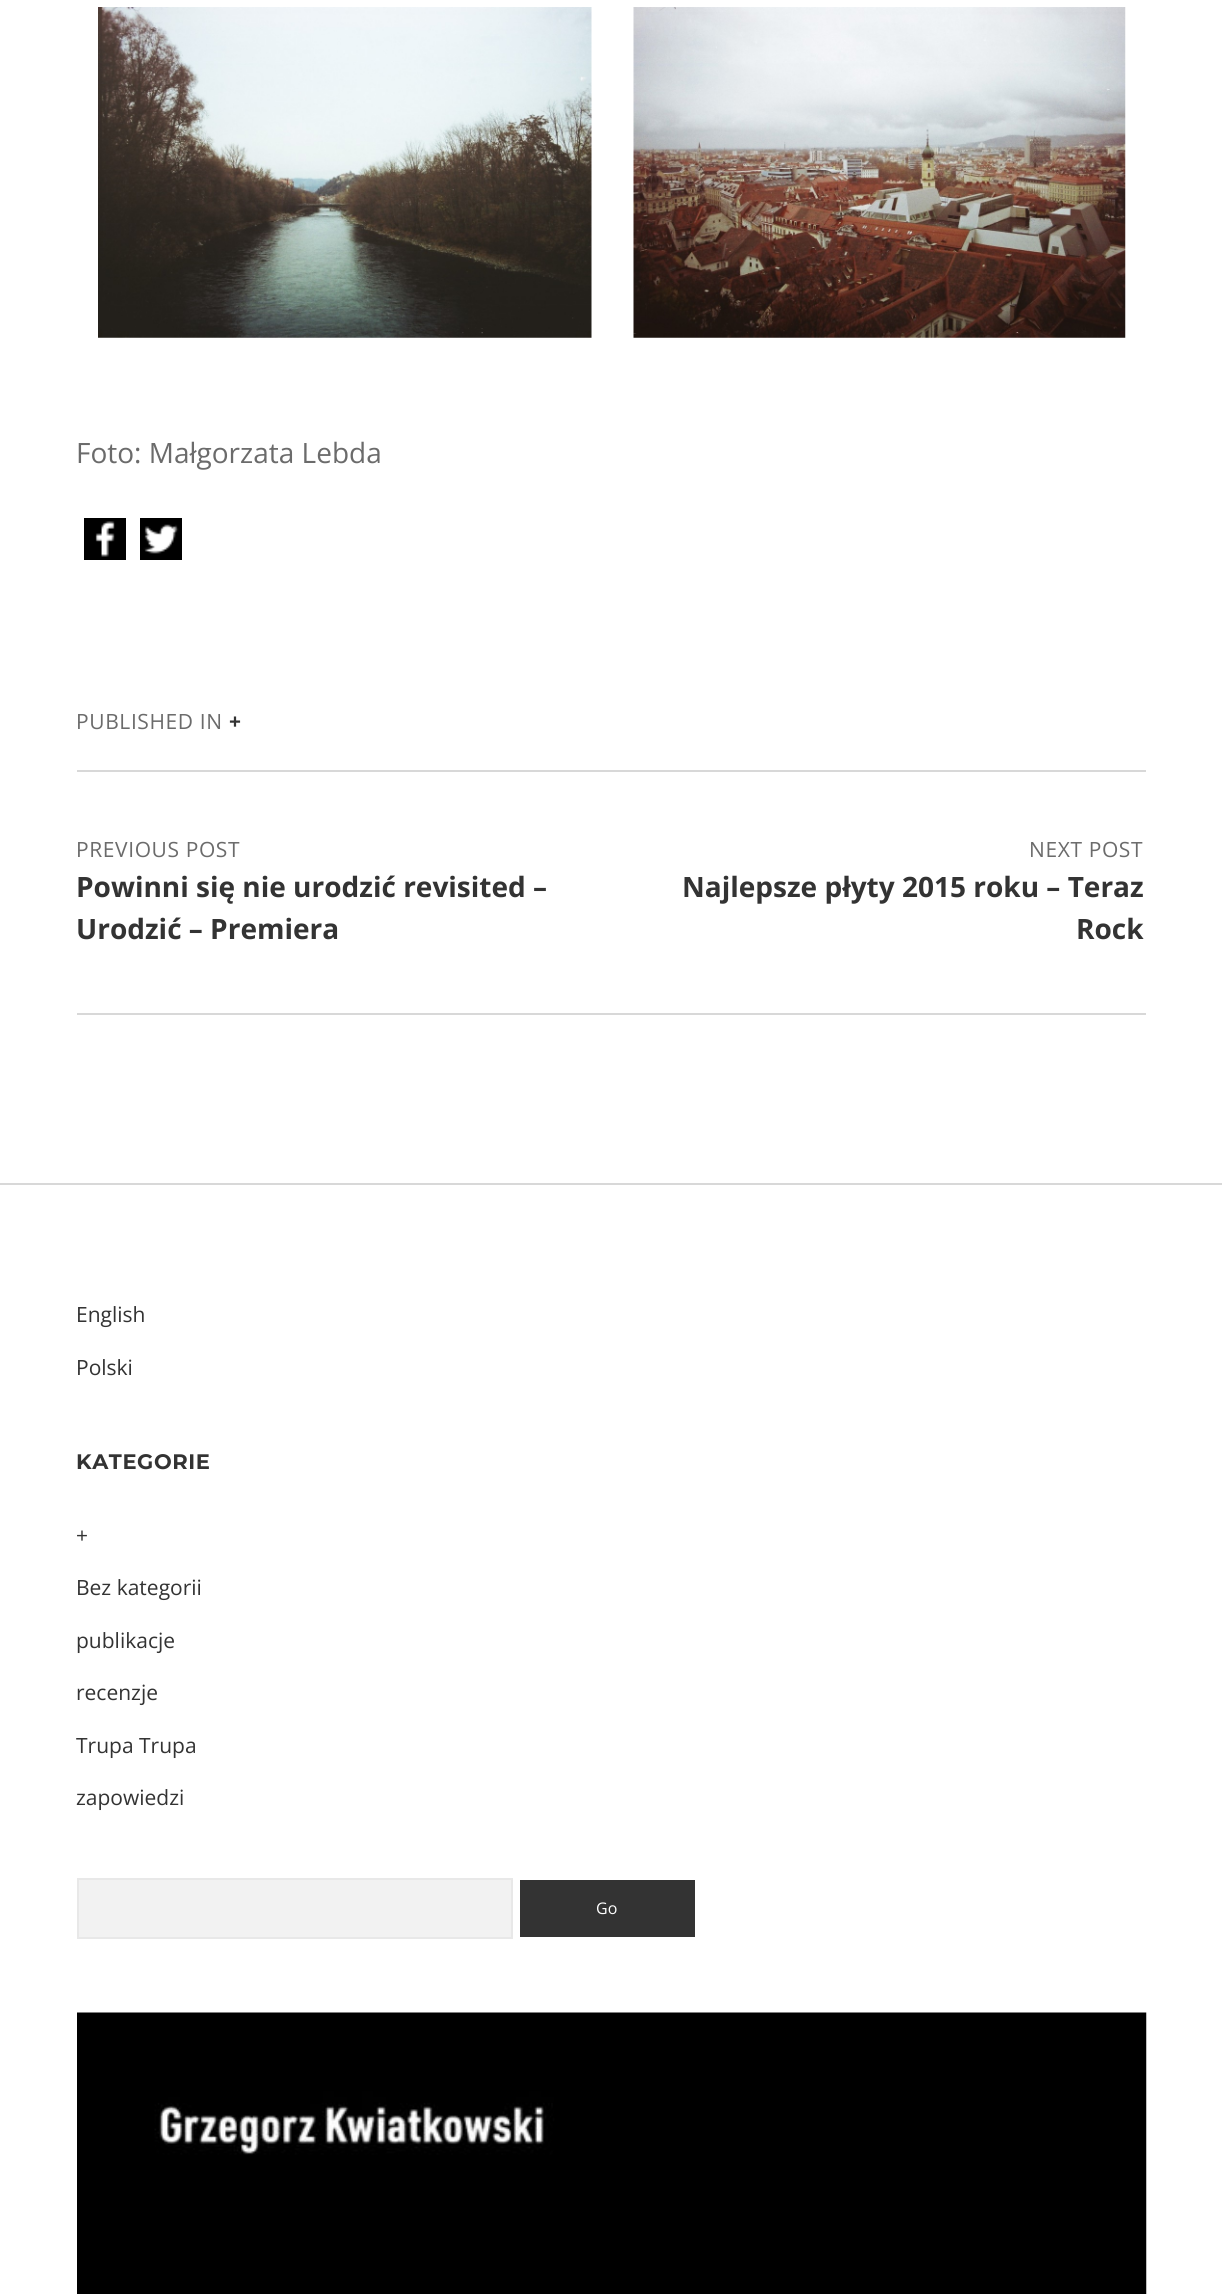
#include <cairo/cairo.h>
#include <math.h>
#include <stddef.h>

static cairo_t *cr;

static void use_color(int r, int g, int b) {
  cairo_set_source_rgb(cr, r / 255.0, g / 255.0, b / 255.0);
}

static void text(double x, double y, const char *s, const char *family, double size, int italic, int bold, int r, int g, int b) {
  cairo_select_font_face(cr, family, italic ? CAIRO_FONT_SLANT_ITALIC : CAIRO_FONT_SLANT_NORMAL,
    bold ? CAIRO_FONT_WEIGHT_BOLD : CAIRO_FONT_WEIGHT_NORMAL);
  cairo_set_font_size(cr, size);
  use_color(r, g, b);
  cairo_move_to(cr, x, y);
  cairo_show_text(cr, s);
}

static void spaced_text(double x, double y, const char *s, double letter, double word) {
  cairo_move_to(cr, x, y);
  while (*s) {
    char ch[5] = {0};
    int n = 0;
    do ch[n++] = *s++; while ((*s & 0xC0) == 0x80);
    cairo_show_text(cr, ch);
    cairo_rel_move_to(cr, letter + word * (*ch == ' '), 0);
  }
}

static void box(double x, double y, double w, double h, int r, int g, int b) {
  use_color(r, g, b);
  cairo_rectangle(cr, x, y, w, h);
  cairo_fill(cr);
}

static void picture(const char *path, double x, double y, double w, double h) {
  cairo_surface_t *image = cairo_image_surface_create_from_png(path);
  cairo_save(cr);
  cairo_set_source_surface(cr, image, x, y);
  cairo_rectangle(cr, x, y, w, h);
  cairo_fill(cr);
  cairo_restore(cr);
  cairo_surface_destroy(image);
}

static void draw(void) {
  use_color(255, 255, 255);
  cairo_paint(cr);
  picture("img_01.png", 98, 7, 494, 331);
  picture("img_02.png", 633, 7, 493, 331);
  picture("img_03.png", 84, 518, 42, 42);
  picture("img_04.png", 140, 518, 42, 42);
  box(77, 770, 1069, 2, 216, 216, 216);
  box(77, 1013, 1069, 2, 216, 216, 216);
  box(0, 1183, 1222, 2, 216, 216, 216);
  use_color(242, 242, 242);
  cairo_rectangle(cr, 78, 1879, 434, 59);
  cairo_fill_preserve(cr);
  use_color(232, 232, 232);
  cairo_stroke(cr);
  box(520, 1880, 175, 57, 51, 51, 51);
  picture("img_05.png", 77, 2012, 1070, 282);
  text(76, 463, "Foto: Małgorzata Lebda", "Open Sans", 28, 0, 0, 107, 107, 107);
  cairo_set_font_size(cr, 21);
  spaced_text(76, 729, "PUBLISHED IN", 0.6, 0);
  cairo_select_font_face(cr, "Open Sans", CAIRO_FONT_SLANT_NORMAL, CAIRO_FONT_WEIGHT_BOLD);
  use_color(51, 51, 51);
  spaced_text(229, 729, "+", 0.6, 0);
  cairo_select_font_face(cr, "Open Sans", CAIRO_FONT_SLANT_NORMAL, CAIRO_FONT_WEIGHT_NORMAL);
  use_color(107, 107, 107);
  spaced_text(76, 857, "PREVIOUS POST", 0.6, 0);
  text(76, 897, "Powinni się nie urodzić revisited –", "Open Sans", 28, 0, 1, 51, 51, 51);
  text(76, 939, "Urodzić – Premiera", "Open Sans", 28, 0, 1, 51, 51, 51);
  cairo_select_font_face(cr, "Open Sans", CAIRO_FONT_SLANT_NORMAL, CAIRO_FONT_WEIGHT_NORMAL);
  cairo_set_font_size(cr, 21);
  use_color(107, 107, 107);
  spaced_text(1029, 857, "NEXT POST", 0.6, 0);
  text(682, 897, "Najlepsze płyty 2015 roku – Teraz", "Open Sans", 28, 0, 1, 51, 51, 51);
  text(1076, 939, "Rock", "Open Sans", 28, 0, 1, 51, 51, 51);
  text(76, 1322, "English", "Open Sans", 21, 0, 0, 51, 51, 51);
  text(76, 1375, "Polski", "Open Sans", 21, 0, 0, 51, 51, 51);
  cairo_select_font_face(cr, "Montserrat", CAIRO_FONT_SLANT_NORMAL, CAIRO_FONT_WEIGHT_BOLD);
  spaced_text(76, 1469, "KATEGORIE", 0.6, 0);
  text(76, 1543, "+", "Open Sans", 21, 0, 0, 51, 51, 51);
  text(76, 1595, "Bez kategorii", "Open Sans", 21, 0, 0, 51, 51, 51);
  text(76, 1648, "publikacje", "Open Sans", 21, 0, 0, 51, 51, 51);
  text(76, 1700, "recenzje", "Open Sans", 21, 0, 0, 51, 51, 51);
  text(76, 1753, "Trupa Trupa", "Open Sans", 21, 0, 0, 51, 51, 51);
  text(76, 1805, "zapowiedzi", "Open Sans", 21, 0, 0, 51, 51, 51);
  text(596, 1914, "Go", "Open Sans", 16, 0, 0, 255, 255, 255);
}

int main(void) {
  cairo_surface_t *surface = cairo_image_surface_create(CAIRO_FORMAT_RGB24, 1222, 2294);
  cr = cairo_create(surface);
  cairo_font_options_t *options = cairo_font_options_create();
  cairo_font_options_set_hint_metrics(options, CAIRO_HINT_METRICS_OFF);
  cairo_font_options_set_hint_style(options, CAIRO_HINT_STYLE_NONE);
  cairo_set_font_options(cr, options);
  cairo_set_miter_limit(cr, 4);
  draw();
  cairo_surface_write_to_png(surface, "out.png");
  cairo_font_options_destroy(options);
  cairo_destroy(cr);
  cairo_surface_destroy(surface);
  return 0;
}
